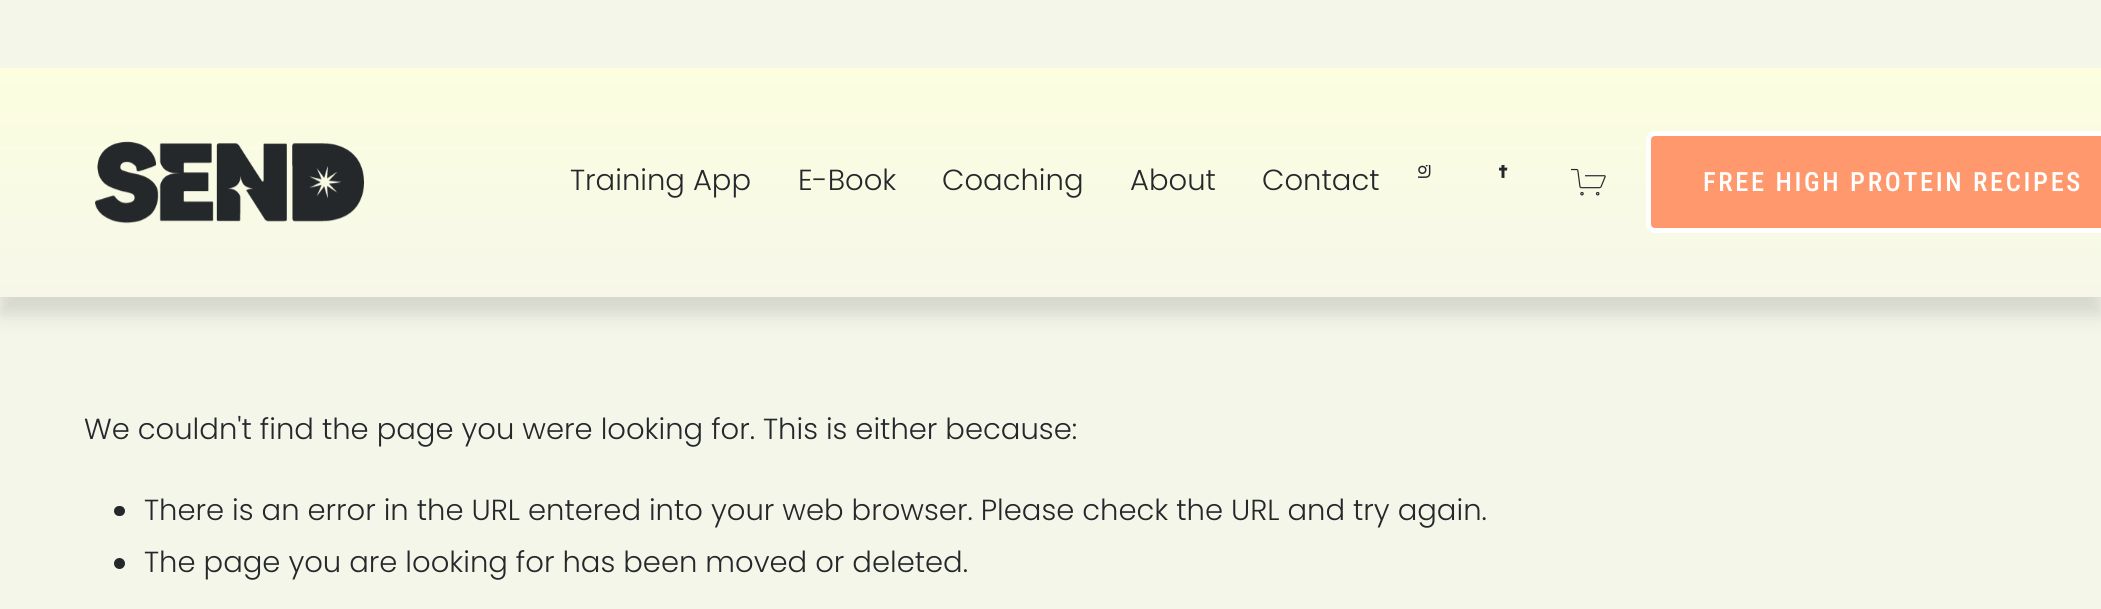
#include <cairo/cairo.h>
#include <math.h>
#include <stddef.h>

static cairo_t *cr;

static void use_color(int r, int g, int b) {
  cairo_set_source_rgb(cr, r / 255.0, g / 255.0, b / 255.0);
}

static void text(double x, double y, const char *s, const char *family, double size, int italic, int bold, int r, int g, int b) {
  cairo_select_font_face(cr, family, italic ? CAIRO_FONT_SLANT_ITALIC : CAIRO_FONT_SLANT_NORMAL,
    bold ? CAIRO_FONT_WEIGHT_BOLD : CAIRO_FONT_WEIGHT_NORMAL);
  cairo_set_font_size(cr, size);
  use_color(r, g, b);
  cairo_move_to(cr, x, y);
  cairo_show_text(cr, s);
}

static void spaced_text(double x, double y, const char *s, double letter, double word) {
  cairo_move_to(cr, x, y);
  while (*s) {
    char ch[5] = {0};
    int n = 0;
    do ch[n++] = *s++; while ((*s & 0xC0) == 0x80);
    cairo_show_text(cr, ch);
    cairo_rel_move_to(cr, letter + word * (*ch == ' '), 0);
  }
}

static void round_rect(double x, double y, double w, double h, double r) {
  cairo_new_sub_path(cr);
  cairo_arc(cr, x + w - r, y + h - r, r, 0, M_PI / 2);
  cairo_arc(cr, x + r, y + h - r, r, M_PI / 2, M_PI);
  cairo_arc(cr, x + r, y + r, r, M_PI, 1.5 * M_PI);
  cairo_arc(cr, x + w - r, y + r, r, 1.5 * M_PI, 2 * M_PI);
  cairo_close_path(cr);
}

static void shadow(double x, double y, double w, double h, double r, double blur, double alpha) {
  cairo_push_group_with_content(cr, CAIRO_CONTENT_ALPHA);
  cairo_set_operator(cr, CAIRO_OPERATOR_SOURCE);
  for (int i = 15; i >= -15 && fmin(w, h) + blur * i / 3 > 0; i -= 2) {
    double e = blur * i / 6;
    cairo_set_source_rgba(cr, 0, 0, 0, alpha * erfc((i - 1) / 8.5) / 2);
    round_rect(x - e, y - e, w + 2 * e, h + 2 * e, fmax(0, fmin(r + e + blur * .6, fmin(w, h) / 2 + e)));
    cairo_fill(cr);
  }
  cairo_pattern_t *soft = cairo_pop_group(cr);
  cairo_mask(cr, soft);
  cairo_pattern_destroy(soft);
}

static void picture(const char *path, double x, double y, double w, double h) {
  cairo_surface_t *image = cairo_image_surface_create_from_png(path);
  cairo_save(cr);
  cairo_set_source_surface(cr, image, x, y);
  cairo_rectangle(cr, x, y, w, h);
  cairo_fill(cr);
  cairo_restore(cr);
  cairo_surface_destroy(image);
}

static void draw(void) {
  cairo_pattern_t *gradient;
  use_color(245, 246, 234);
  cairo_paint(cr);
  use_color(214, 215, 205);
  shadow(0, 86, 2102, 229, 0, 9, 1);
  gradient = cairo_pattern_create_linear(1051, 67, 1051, 297);
  cairo_pattern_add_color_stop_rgba(gradient, 0, 0.988, 0.996, 0.875, 1);
  cairo_pattern_add_color_stop_rgba(gradient, 1, 0.965, 0.969, 0.914, 1);
  cairo_set_source(cr, gradient);
  cairo_pattern_destroy(gradient);
  cairo_rectangle(cr, 0, 68, 2101, 229);
  cairo_fill(cr);
  picture("img_01.png", 95, 141, 269, 83);
  picture("img_02.png", 1418, 165, 13, 13);
  picture("img_03.png", 1499, 165, 9, 13);
  picture("img_04.png", 1571, 168, 35, 28);
  use_color(255, 152, 109);
  round_rect(1648.5, 133.5, 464, 97, 6.5);
  cairo_fill_preserve(cr);
  use_color(255, 255, 255);
  cairo_set_line_width(cr, 5);
  cairo_stroke(cr);
  use_color(37, 40, 43);
  round_rect(114, 506, 11, 10, 5);
  cairo_fill(cr);
  cairo_arc(cr, 119.5, 563.5, 5.5, 0, 2 * M_PI);
  cairo_fill(cr);
  text(570, 190, "Training App", "Poppins Light", 29.05, 0, 0, 37, 40, 43);
  text(798, 190, "E-Book", "Poppins Light", 29.05, 0, 0, 37, 40, 43);
  text(942, 190, "Coaching", "Poppins Light", 29.05, 0, 0, 37, 40, 43);
  text(1130, 190, "About", "Poppins Light", 29.05, 0, 0, 37, 40, 43);
  text(1262, 190, "Contact", "Poppins Light", 29.05, 0, 0, 37, 40, 43);
  cairo_select_font_face(cr, "Roboto Condensed Medium", CAIRO_FONT_SLANT_NORMAL, CAIRO_FONT_WEIGHT_NORMAL);
  cairo_set_font_size(cr, 26.5);
  use_color(255, 255, 255);
  spaced_text(1703, 191, "FREE HIGH PROTEIN RECIPES", 2.65, 0);
  text(84, 439, "We couldn't find the page you were looking for. This is either because:", "Poppins Light", 29.05, 0, 0, 37, 40, 43);
  text(144, 520, "There is an error in the URL entered into your web browser. Please check the URL and try again.", "Poppins Light", 29.05, 0, 0, 37, 40, 43);
  text(144, 572, "The page you are looking for has been moved or deleted.", "Poppins Light", 29.05, 0, 0, 37, 40, 43);
}

int main(void) {
  cairo_surface_t *surface = cairo_image_surface_create(CAIRO_FORMAT_RGB24, 2101, 609);
  cr = cairo_create(surface);
  cairo_font_options_t *options = cairo_font_options_create();
  cairo_font_options_set_hint_metrics(options, CAIRO_HINT_METRICS_OFF);
  cairo_font_options_set_hint_style(options, CAIRO_HINT_STYLE_NONE);
  cairo_set_font_options(cr, options);
  cairo_set_miter_limit(cr, 4);
  draw();
  cairo_surface_write_to_png(surface, "out.png");
  cairo_font_options_destroy(options);
  cairo_destroy(cr);
  cairo_surface_destroy(surface);
  return 0;
}
